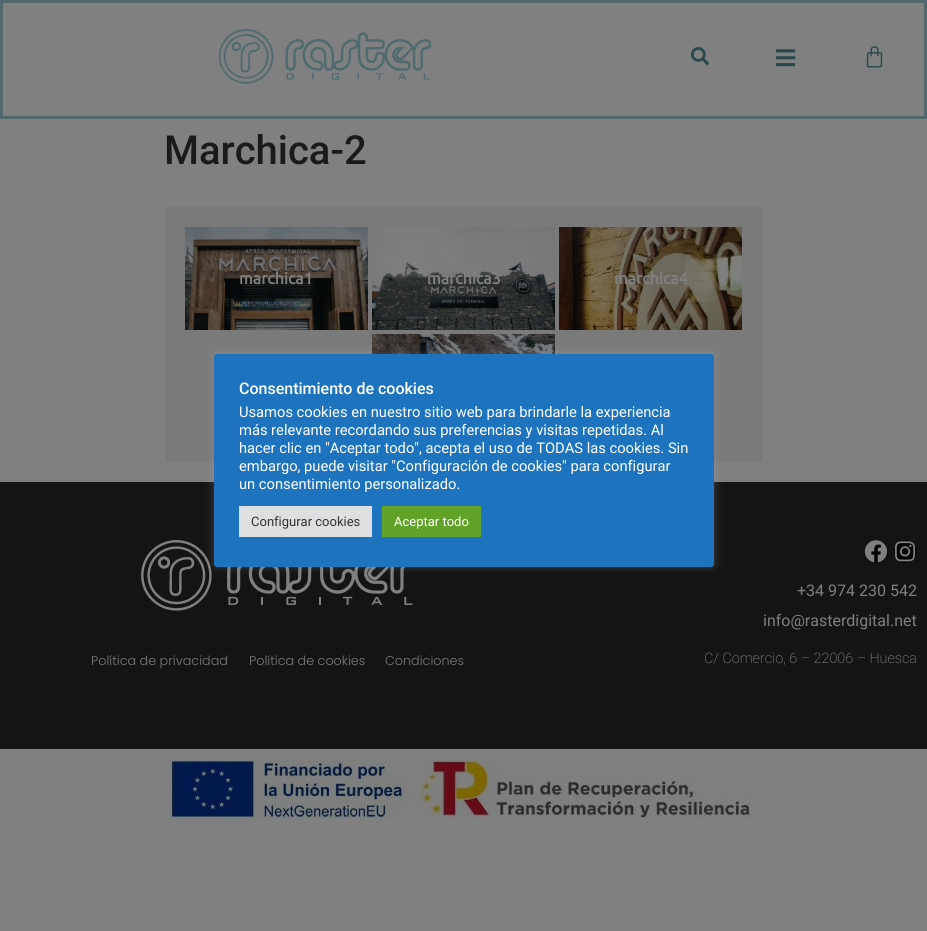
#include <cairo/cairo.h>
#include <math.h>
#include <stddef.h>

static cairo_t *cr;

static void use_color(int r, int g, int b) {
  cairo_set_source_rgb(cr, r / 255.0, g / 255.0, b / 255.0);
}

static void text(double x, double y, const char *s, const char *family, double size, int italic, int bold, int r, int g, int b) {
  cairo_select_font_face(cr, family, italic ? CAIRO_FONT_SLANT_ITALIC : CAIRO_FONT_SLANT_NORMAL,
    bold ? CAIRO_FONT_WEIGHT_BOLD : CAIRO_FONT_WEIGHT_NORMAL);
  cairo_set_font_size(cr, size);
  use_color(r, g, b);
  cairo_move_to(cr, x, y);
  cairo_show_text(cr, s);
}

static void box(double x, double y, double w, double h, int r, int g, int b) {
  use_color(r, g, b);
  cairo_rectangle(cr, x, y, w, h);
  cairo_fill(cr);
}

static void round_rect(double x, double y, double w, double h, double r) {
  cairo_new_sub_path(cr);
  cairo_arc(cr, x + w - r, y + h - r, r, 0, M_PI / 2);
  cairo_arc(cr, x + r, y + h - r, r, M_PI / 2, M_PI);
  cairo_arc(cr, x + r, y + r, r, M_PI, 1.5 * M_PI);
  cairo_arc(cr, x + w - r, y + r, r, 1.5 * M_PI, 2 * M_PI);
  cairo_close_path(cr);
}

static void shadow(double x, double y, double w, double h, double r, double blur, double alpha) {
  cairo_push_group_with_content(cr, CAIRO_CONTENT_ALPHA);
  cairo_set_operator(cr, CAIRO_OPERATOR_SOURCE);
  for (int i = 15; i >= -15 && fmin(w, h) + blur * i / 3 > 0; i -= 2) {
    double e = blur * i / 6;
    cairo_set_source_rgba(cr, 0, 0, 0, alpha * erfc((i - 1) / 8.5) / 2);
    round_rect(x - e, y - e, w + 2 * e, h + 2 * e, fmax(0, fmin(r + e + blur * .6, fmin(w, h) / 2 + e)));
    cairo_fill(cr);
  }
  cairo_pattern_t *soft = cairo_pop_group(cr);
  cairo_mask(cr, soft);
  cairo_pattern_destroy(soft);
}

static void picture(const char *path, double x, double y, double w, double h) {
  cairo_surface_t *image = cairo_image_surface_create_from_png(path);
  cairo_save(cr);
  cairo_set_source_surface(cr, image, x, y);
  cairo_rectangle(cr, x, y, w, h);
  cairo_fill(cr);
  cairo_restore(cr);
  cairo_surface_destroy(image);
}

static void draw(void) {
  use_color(128, 128, 128);
  cairo_paint(cr);
  cairo_rectangle(cr, 1.5, 1.5, 924, 116);
  use_color(79, 105, 108);
  cairo_set_line_width(cr, 3);
  cairo_stroke(cr);
  picture("img_01.png", 218, 29, 214, 55);
  picture("img_02.png", 690, 47, 19, 19);
  picture("img_03.png", 776, 49, 20, 18);
  picture("img_04.png", 866, 46, 17, 22);
  box(165, 207, 598, 255, 122, 122, 122);
  picture("img_05.png", 185, 227, 183, 103);
  picture("img_06.png", 372, 227, 183, 103);
  picture("img_07.png", 559, 227, 183, 103);
  picture("img_08.png", 372, 334, 183, 20);
  box(0, 482, 927, 267, 20, 20, 20);
  picture("img_09.png", 141, 540, 272, 71);
  use_color(3, 3, 3);
  cairo_arc(cr, 876.5, 551.5, 11.5, 0, 2 * M_PI);
  cairo_fill(cr);
  picture("img_10.png", 864, 540, 24, 23);
  cairo_arc(cr, 905.5, 551.5, 11.5, 0, 2 * M_PI);
  cairo_fill(cr);
  picture("img_11.png", 894, 541, 22, 21);
  picture("img_12.png", 169, 759, 584, 60);
  use_color(172, 171, 171);
  shadow(214, 353, 500, 213, 3, 5, 0.3);
  use_color(30, 115, 190);
  round_rect(214, 354, 500, 213, 3);
  cairo_fill(cr);
  box(239, 506, 133, 31, 222, 223, 224);
  box(382, 506, 99, 31, 97, 162, 41);
  text(164, 164, "Marchica-2", "Roboto Medium", 40, 0, 0, 26, 26, 26);
  text(239, 284, "marchica1", "Ubuntu", 16, 0, 1, 128, 128, 128);
  text(427, 284, "marchica3", "Ubuntu", 16, 0, 1, 128, 128, 128);
  text(614, 284, "marchica4", "Ubuntu", 16, 0, 1, 128, 128, 128);
  text(91, 665, "Política de privacidad", "Poppins Light", 12.75, 0, 0, 122, 122, 122);
  text(249, 665, "Política de cookies", "Poppins Light", 12.75, 0, 0, 122, 122, 122);
  text(385, 665, "Condiciones", "Poppins Light", 12.75, 0, 0, 122, 122, 122);
  text(797, 596, "+34 974 230 542", "Roboto", 16, 0, 0, 128, 128, 128);
  text(763, 626, "info@rasterdigital.net", "Roboto", 16, 0, 0, 128, 128, 128);
  text(704, 663, "C/ Comercio, 6 – 22006 – Huesca", "Roboto ExtraLight", 14.4, 0, 0, 128, 128, 128);
  text(239, 394, "Consentimiento de cookies", "Roboto Medium", 16, 0, 0, 255, 255, 255);
  text(239, 417, "Usamos cookies en nuestro sitio web para brindarle la experiencia", "Roboto", 14.7, 0, 0, 255, 255, 255);
  text(239, 435, "más relevante recordando sus preferencias y visitas repetidas. Al", "Roboto", 14.7, 0, 0, 255, 255, 255);
  text(239, 453, "hacer clic en \"Aceptar todo\", acepta el uso de TODAS las cookies. Sin", "Roboto", 14.7, 0, 0, 255, 255, 255);
  text(239, 471, "embargo, puede visitar \"Configuración de cookies\" para configurar", "Roboto", 14.7, 0, 0, 255, 255, 255);
  text(239, 489, "un consentimiento personalizado.", "Roboto", 14.7, 0, 0, 255, 255, 255);
  text(251, 526, "Configurar cookies", "Roboto", 13, 0, 0, 51, 51, 51);
  text(394, 526, "Aceptar todo", "Roboto", 13, 0, 0, 255, 255, 255);
}

int main(void) {
  cairo_surface_t *surface = cairo_image_surface_create(CAIRO_FORMAT_RGB24, 927, 931);
  cr = cairo_create(surface);
  cairo_font_options_t *options = cairo_font_options_create();
  cairo_font_options_set_hint_metrics(options, CAIRO_HINT_METRICS_OFF);
  cairo_font_options_set_hint_style(options, CAIRO_HINT_STYLE_NONE);
  cairo_set_font_options(cr, options);
  cairo_set_miter_limit(cr, 4);
  draw();
  cairo_surface_write_to_png(surface, "out.png");
  cairo_font_options_destroy(options);
  cairo_destroy(cr);
  cairo_surface_destroy(surface);
  return 0;
}
